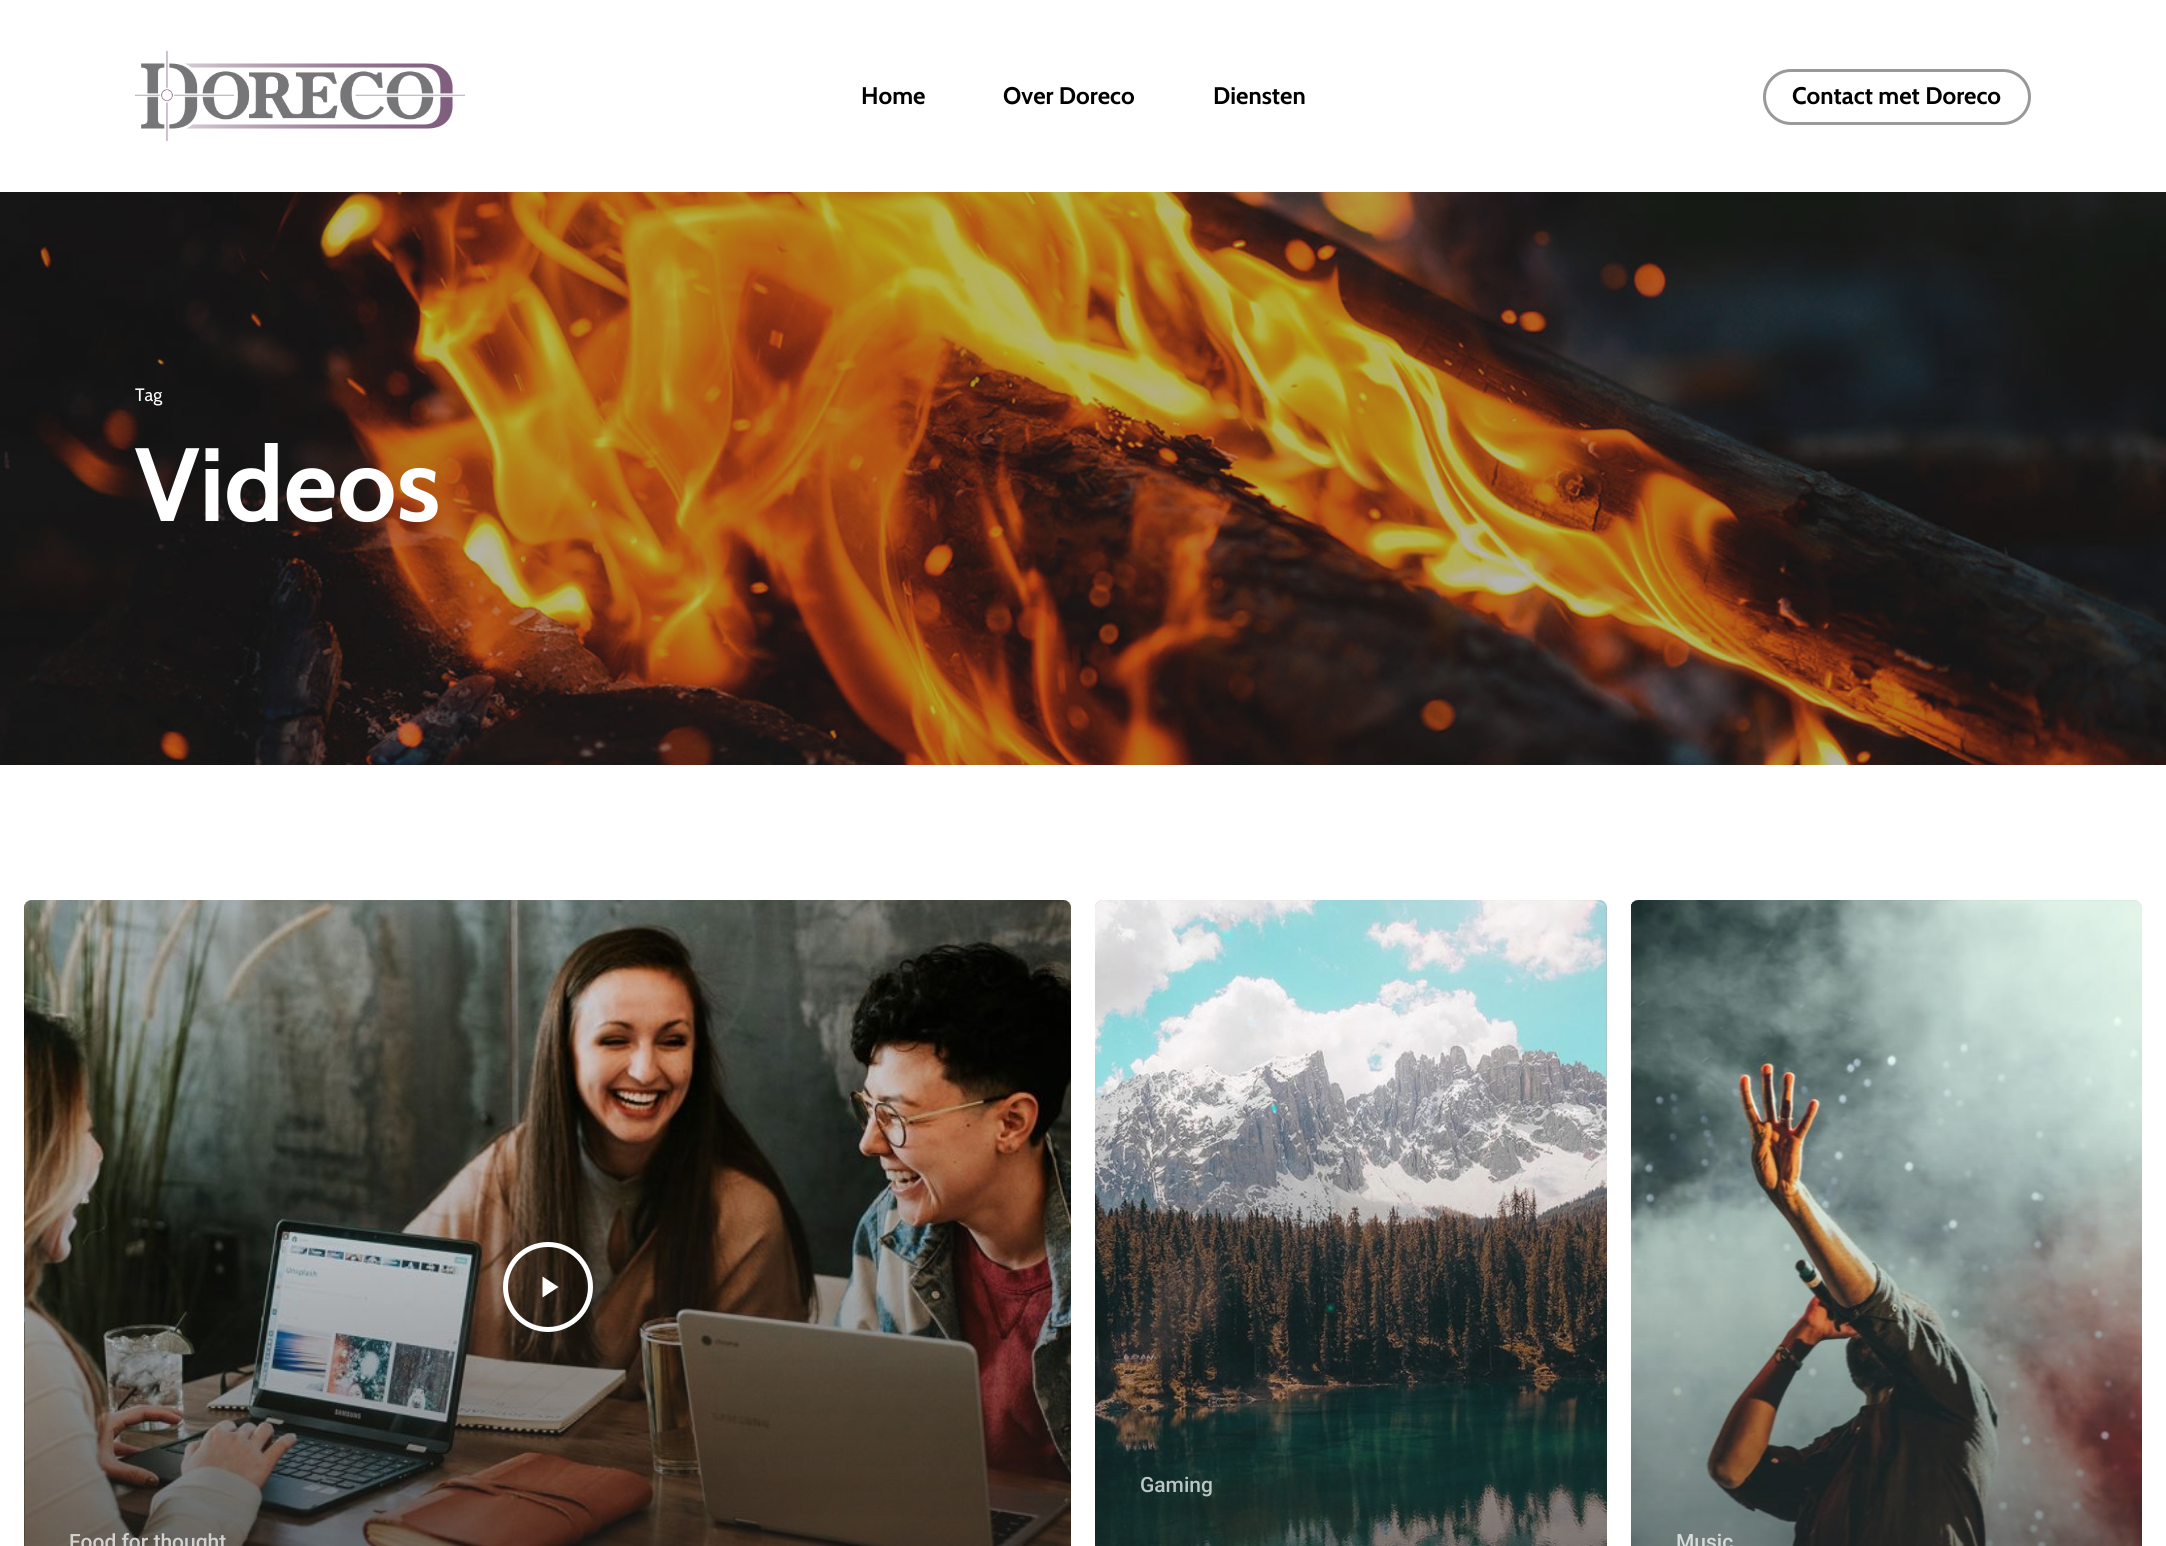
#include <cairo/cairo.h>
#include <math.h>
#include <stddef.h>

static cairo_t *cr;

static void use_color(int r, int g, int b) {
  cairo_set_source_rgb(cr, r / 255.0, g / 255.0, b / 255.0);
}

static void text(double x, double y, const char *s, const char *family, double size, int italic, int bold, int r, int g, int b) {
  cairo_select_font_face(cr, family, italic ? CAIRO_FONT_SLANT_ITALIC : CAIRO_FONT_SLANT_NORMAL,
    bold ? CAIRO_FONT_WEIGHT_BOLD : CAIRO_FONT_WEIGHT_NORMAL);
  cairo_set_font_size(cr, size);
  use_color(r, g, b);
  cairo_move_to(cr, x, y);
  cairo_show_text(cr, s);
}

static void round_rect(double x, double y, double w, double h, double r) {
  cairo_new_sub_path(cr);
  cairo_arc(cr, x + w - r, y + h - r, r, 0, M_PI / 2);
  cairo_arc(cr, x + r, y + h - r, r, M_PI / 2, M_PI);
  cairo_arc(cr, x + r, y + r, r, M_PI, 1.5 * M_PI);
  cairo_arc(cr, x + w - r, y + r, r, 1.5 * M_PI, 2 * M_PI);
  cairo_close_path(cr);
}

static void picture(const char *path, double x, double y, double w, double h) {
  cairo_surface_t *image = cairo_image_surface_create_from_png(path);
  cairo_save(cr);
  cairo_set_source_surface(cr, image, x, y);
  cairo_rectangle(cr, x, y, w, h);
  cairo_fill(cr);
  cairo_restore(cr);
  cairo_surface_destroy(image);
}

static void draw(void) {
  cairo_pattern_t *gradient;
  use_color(255, 255, 255);
  cairo_paint(cr);
  picture("img_01.png", 135, 51, 330, 90);
  round_rect(1764.5, 70.5, 265, 53, 26.5);
  use_color(153, 153, 153);
  cairo_set_line_width(cr, 3);
  cairo_stroke(cr);
  picture("img_02.png", 0, 192, 2166, 573);
  use_color(179, 179, 179);
  round_rect(1095, 900, 512, 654, 8);
  cairo_fill(cr);
  picture("img_03.png", 1095, 900, 512, 646);
  gradient = cairo_pattern_create_linear(1352, 1095, 1352, 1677);
  cairo_pattern_add_color_stop_rgba(gradient, 0, 0.137, 0.137, 0.137, 0);
  cairo_pattern_add_color_stop_rgba(gradient, 1, 0.137, 0.137, 0.137, 0.65);
  cairo_set_source(cr, gradient);
  cairo_pattern_destroy(gradient);
  cairo_rectangle(cr, 1095, 1114, 512, 432);
  cairo_fill(cr);
  picture("img_04.png", 24, 900, 1047, 646);
  use_color(255, 255, 255);
  cairo_new_path(cr);
  cairo_move_to(cr, 542.5, 1276.5);
  cairo_line_to(cr, 542.5, 1297.5);
  cairo_line_to(cr, 558.5, 1287);
  cairo_close_path(cr);
  cairo_fill(cr);
  cairo_arc(cr, 548, 1287, 42.5, 0, 2 * M_PI);
  cairo_set_line_width(cr, 5);
  cairo_stroke(cr);
  picture("img_05.png", 1631, 900, 511, 646);
  text(861, 104, "Home", "Cabin", 24, 0, 1, 0, 0, 0);
  text(1003, 104, "Over Doreco", "Cabin", 24, 0, 1, 0, 0, 0);
  text(1213, 104, "Diensten", "Cabin", 24, 0, 1, 0, 0, 0);
  text(1792, 104, "Contact met Doreco", "Cabin", 24, 0, 1, 0, 0, 0);
  text(135, 401, "Tag", "Cabin", 18, 0, 0, 255, 255, 255);
  text(135, 521, "Videos", "Cabin", 104, 0, 1, 255, 255, 255);
  text(1140, 1492, "Gaming", "Roboto Medium", 21, 0, 0, 189, 197, 196);
  text(69, 1549, "Food for thought", "Roboto Medium", 21, 0, 0, 212, 210, 208);
  text(1676, 1549, "Music", "Roboto Medium", 21, 0, 0, 215, 219, 218);
}

int main(void) {
  cairo_surface_t *surface = cairo_image_surface_create(CAIRO_FORMAT_RGB24, 2166, 1546);
  cr = cairo_create(surface);
  cairo_font_options_t *options = cairo_font_options_create();
  cairo_font_options_set_hint_metrics(options, CAIRO_HINT_METRICS_OFF);
  cairo_font_options_set_hint_style(options, CAIRO_HINT_STYLE_NONE);
  cairo_set_font_options(cr, options);
  cairo_set_miter_limit(cr, 4);
  draw();
  cairo_surface_write_to_png(surface, "out.png");
  cairo_font_options_destroy(options);
  cairo_destroy(cr);
  cairo_surface_destroy(surface);
  return 0;
}
